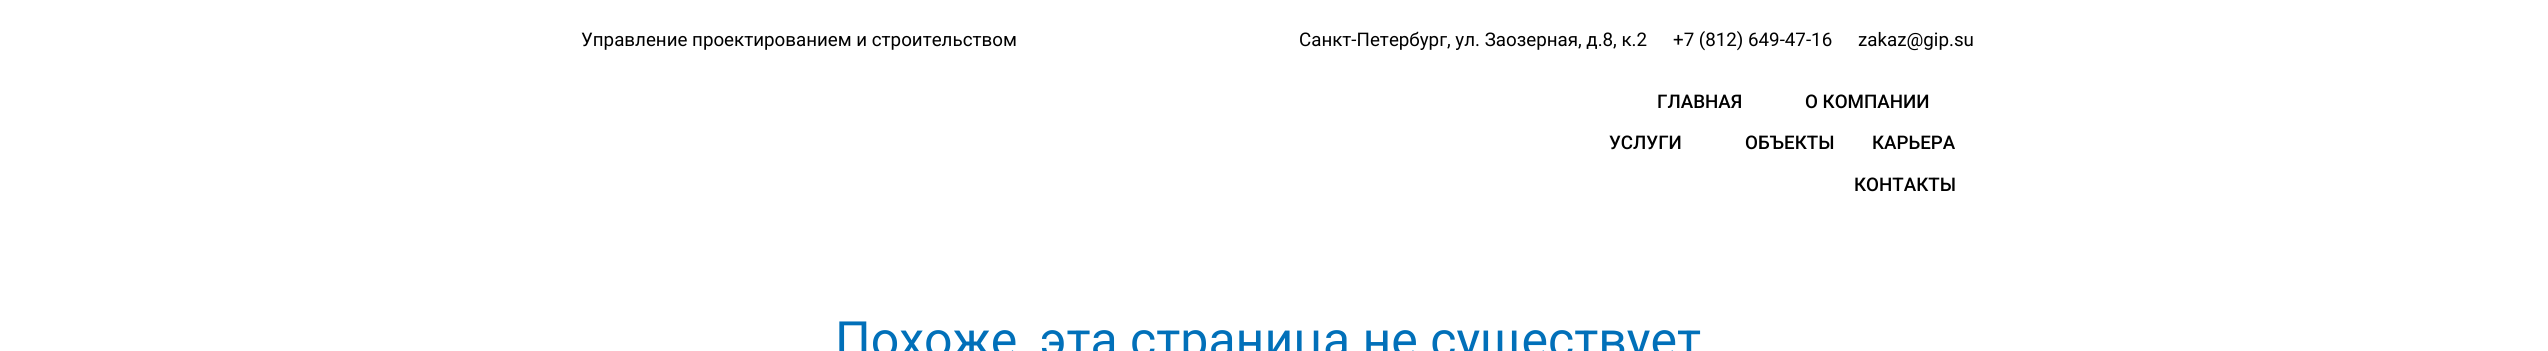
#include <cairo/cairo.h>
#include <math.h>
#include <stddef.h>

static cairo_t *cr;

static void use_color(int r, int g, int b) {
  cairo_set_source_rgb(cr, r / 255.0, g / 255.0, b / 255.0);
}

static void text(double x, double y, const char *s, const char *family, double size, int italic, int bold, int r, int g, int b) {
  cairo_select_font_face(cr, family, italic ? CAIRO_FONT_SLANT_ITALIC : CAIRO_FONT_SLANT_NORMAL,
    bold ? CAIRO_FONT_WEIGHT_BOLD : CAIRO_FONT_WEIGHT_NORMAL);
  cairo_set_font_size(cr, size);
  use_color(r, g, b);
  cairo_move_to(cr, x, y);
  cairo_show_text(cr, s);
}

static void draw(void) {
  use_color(255, 255, 255);
  cairo_paint(cr);
  text(581, 46, "Управление проектированием и строительством", "Roboto", 18.75, 0, 0, 0, 0, 0);
  text(1299, 46, "Санкт-Петербург, ул. Заозерная, д.8, к.2", "Roboto", 18.75, 0, 0, 0, 0, 0);
  text(1673, 46, "+7 (812) 649-47-16", "Roboto", 18.75, 0, 0, 0, 0, 0);
  text(1858, 46, "zakaz@gip.su", "Roboto", 18.75, 0, 0, 0, 0, 0);
  text(1657, 108, "ГЛАВНАЯ", "Roboto Medium", 18.75, 0, 0, 0, 0, 0);
  text(1805, 108, "О КОМПАНИИ", "Roboto Medium", 18.75, 0, 0, 0, 0, 0);
  text(1609, 149, "УСЛУГИ", "Roboto Medium", 18.75, 0, 0, 0, 0, 0);
  text(1745, 149, "ОБЪЕКТЫ", "Roboto Medium", 18.75, 0, 0, 0, 0, 0);
  text(1872, 149, "КАРЬЕРА", "Roboto Medium", 18.75, 0, 0, 0, 0, 0);
  text(1854, 191, "КОНТАКТЫ", "Roboto Medium", 18.75, 0, 0, 0, 0, 0);
  text(835, 357, "Похоже, эта страница не существует", "Roboto", 50, 0, 0, 1, 112, 185);
}

int main(void) {
  cairo_surface_t *surface = cairo_image_surface_create(CAIRO_FORMAT_RGB24, 2548, 351);
  cr = cairo_create(surface);
  cairo_font_options_t *options = cairo_font_options_create();
  cairo_font_options_set_hint_metrics(options, CAIRO_HINT_METRICS_OFF);
  cairo_font_options_set_hint_style(options, CAIRO_HINT_STYLE_NONE);
  cairo_set_font_options(cr, options);
  cairo_set_miter_limit(cr, 4);
  draw();
  cairo_surface_write_to_png(surface, "out.png");
  cairo_font_options_destroy(options);
  cairo_destroy(cr);
  cairo_surface_destroy(surface);
  return 0;
}
